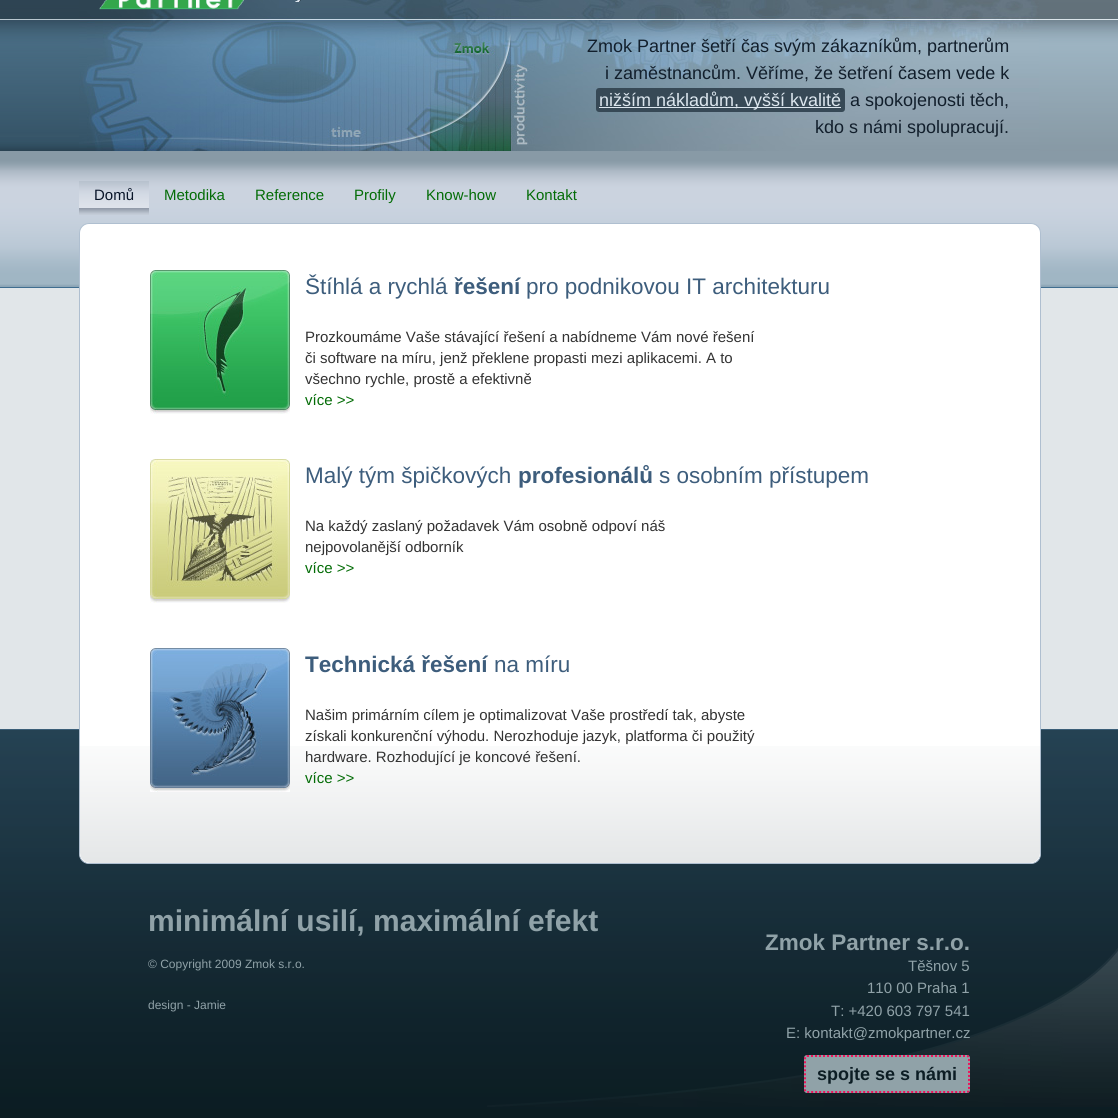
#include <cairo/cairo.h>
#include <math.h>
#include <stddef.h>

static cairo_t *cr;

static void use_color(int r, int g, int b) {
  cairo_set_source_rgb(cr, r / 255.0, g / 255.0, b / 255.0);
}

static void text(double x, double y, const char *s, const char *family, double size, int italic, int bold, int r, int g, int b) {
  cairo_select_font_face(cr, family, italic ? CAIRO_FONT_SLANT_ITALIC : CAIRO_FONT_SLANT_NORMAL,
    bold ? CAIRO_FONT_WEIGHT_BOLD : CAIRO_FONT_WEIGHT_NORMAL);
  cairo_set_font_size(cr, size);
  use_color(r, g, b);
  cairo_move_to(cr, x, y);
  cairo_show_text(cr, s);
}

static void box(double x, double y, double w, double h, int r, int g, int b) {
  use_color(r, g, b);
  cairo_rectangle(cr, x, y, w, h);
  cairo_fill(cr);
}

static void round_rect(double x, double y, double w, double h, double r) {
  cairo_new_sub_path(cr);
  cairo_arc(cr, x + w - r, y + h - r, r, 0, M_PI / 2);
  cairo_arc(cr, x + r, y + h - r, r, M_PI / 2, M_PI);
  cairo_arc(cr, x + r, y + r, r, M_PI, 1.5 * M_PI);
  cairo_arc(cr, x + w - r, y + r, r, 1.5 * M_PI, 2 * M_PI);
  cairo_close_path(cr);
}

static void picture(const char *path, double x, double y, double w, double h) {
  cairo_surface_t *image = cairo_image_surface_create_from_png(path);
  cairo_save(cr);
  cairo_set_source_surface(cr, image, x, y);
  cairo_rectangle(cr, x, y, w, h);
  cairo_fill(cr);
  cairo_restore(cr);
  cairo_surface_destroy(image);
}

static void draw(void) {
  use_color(225, 230, 233);
  cairo_paint(cr);
  picture("img_01.png", 0, 0, 79, 288);
  picture("img_02.png", 79, 0, 960, 151);
  picture("img_03.png", 99, 0, 202, 10);
  use_color(55, 73, 86);
  round_rect(596, 88, 249, 24, 3);
  cairo_fill(cr);
  box(599, 107, 242, 1, 220, 230, 238);
  picture("img_04.png", 79, 151, 960, 82);
  picture("img_05.png", 79, 181, 70, 34);
  picture("img_10.png", 1039, 0, 79, 288);
  picture("img_11.png", 0, 730, 1118, 388);
  box(0, 729, 1118, 1, 58, 94, 120);
  use_color(255, 255, 255);
  round_rect(79.5, 223.5, 961, 640, 9.5);
  cairo_fill_preserve(cr);
  use_color(175, 191, 208);
  cairo_set_line_width(cr, 1);
  cairo_stroke(cr);
  picture("img_06.png", 150, 270, 140, 144);
  picture("img_07.png", 150, 459, 140, 144);
  use_color(255, 255, 255);
  round_rect(80, 713, 960, 150, 10);
  cairo_fill(cr);
  picture("img_09.png", 80, 746, 960, 117);
  picture("img_08.png", 150, 648, 140, 144);
  picture("img_12.png", 487, 948, 631, 159);
  use_color(144, 162, 168);
  round_rect(804, 1055, 166, 38, 3);
  cairo_fill(cr);
  cairo_new_path(cr);
  cairo_move_to(cr, 807, 1056);
  cairo_line_to(cr, 967, 1056);
  cairo_curve_to(cr, 968, 1056, 969, 1057, 969, 1058);
  cairo_line_to(cr, 969, 1090);
  cairo_curve_to(cr, 969, 1091, 968, 1092, 967, 1092);
  cairo_line_to(cr, 807, 1092);
  cairo_curve_to(cr, 806, 1092, 805, 1091, 805, 1090);
  cairo_line_to(cr, 805, 1058);
  cairo_curve_to(cr, 805, 1057, 806, 1056, 807, 1056);
  cairo_close_path(cr);
  use_color(237, 20, 91);
  cairo_set_line_width(cr, 2);
  cairo_set_dash(cr, (double[]){2, 2}, 2, 0);
  cairo_stroke(cr);
  text(587, 52, "Zmok Partner šetří čas svým zákazníkům, partnerům", "Liberation Sans", 18, 0, 0, 18, 31, 44);
  text(605, 79, "i zaměstnancům. Věříme, že šetření časem vede k", "Liberation Sans", 18, 0, 0, 18, 31, 44);
  text(599, 106, "nižším nákladům, vyšší kvalitě", "Liberation Sans", 18, 0, 0, 220, 230, 238);
  text(850, 106, "a spokojenosti těch,", "Liberation Sans", 18, 0, 0, 18, 31, 44);
  text(815, 133, "kdo s námi spolupracují.", "Liberation Sans", 18, 0, 0, 18, 31, 44);
  text(94, 200, "Domů", "Liberation Sans", 15, 0, 0, 9, 21, 41);
  text(164, 200, "Metodika", "Liberation Sans", 15, 0, 0, 3, 108, 6);
  text(255, 200, "Reference", "Liberation Sans", 15, 0, 0, 3, 108, 6);
  text(354, 200, "Profily", "Liberation Sans", 15, 0, 0, 3, 108, 6);
  text(426, 200, "Know-how", "Liberation Sans", 15, 0, 0, 3, 108, 6);
  text(526, 200, "Kontakt", "Liberation Sans", 15, 0, 0, 3, 108, 6);
  text(305, 294, "Štíhlá a rychlá", "Liberation Sans", 22.5, 0, 0, 61, 93, 124);
  text(454, 294, "řešení", "Liberation Sans", 22.5, 0, 1, 61, 93, 124);
  text(526, 294, "pro podnikovou IT architekturu", "Liberation Sans", 22.5, 0, 0, 61, 93, 124);
  text(305, 342, "Prozkoumáme Vaše stávající řešení a nabídneme Vám nové řešení", "Liberation Sans", 15, 0, 0, 51, 51, 51);
  text(305, 363, "či software na míru, jenž překlene propasti mezi aplikacemi. A to", "Liberation Sans", 15, 0, 0, 51, 51, 51);
  text(305, 384, "všechno rychle, prostě a efektivně", "Liberation Sans", 15, 0, 0, 51, 51, 51);
  text(305, 405, "více >>", "Liberation Sans", 15, 0, 0, 3, 108, 6);
  text(305, 483, "Malý tým špičkových", "Liberation Sans", 22.5, 0, 0, 61, 93, 124);
  text(518, 483, "profesionálů", "Liberation Sans", 22.5, 0, 1, 61, 93, 124);
  text(659, 483, "s osobním přístupem", "Liberation Sans", 22.5, 0, 0, 61, 93, 124);
  text(305, 531, "Na každý zaslaný požadavek Vám osobně odpoví náš", "Liberation Sans", 15, 0, 0, 51, 51, 51);
  text(305, 552, "nejpovolanější odborník", "Liberation Sans", 15, 0, 0, 51, 51, 51);
  text(305, 573, "více >>", "Liberation Sans", 15, 0, 0, 3, 108, 6);
  text(305, 672, "Technická řešení", "Liberation Sans", 22.5, 0, 1, 61, 93, 124);
  text(494, 672, "na míru", "Liberation Sans", 22.5, 0, 0, 61, 93, 124);
  text(305, 720, "Našim primárním cílem je optimalizovat Vaše prostředí tak, abyste", "Liberation Sans", 15, 0, 0, 51, 51, 51);
  text(305, 741, "získali konkurenční výhodu. Nerozhoduje jazyk, platforma či použitý", "Liberation Sans", 15, 0, 0, 51, 51, 51);
  text(305, 762, "hardware. Rozhodující je koncové řešení.", "Liberation Sans", 15, 0, 0, 51, 51, 51);
  text(305, 783, "více >>", "Liberation Sans", 15, 0, 0, 3, 108, 6);
  text(148, 931, "minimální usilí, maximální efekt", "Liberation Sans", 30, 0, 1, 144, 162, 168);
  text(148, 968, "© Copyright 2009 Zmok s.r.o.", "Liberation Sans", 12, 0, 0, 144, 162, 168);
  text(765, 950, "Zmok Partner s.r.o.", "Liberation Sans", 22.5, 0, 1, 144, 162, 168);
  text(908, 971, "Těšnov 5", "Liberation Sans", 15, 0, 0, 144, 162, 168);
  text(867, 993, "110 00 Praha 1", "Liberation Sans", 15, 0, 0, 144, 162, 168);
  text(831, 1016, "T: +420 603 797 541", "Liberation Sans", 15, 0, 0, 144, 162, 168);
  text(786, 1038, "E: kontakt@zmokpartner.cz", "Liberation Sans", 15, 0, 0, 144, 162, 168);
  text(817, 1080, "spojte se s námi", "Liberation Sans", 18, 0, 1, 12, 29, 36);
  text(148, 1009, "design - Jamie", "Liberation Sans", 12, 0, 0, 144, 162, 168);
}

int main(void) {
  cairo_surface_t *surface = cairo_image_surface_create(CAIRO_FORMAT_RGB24, 1118, 1118);
  cr = cairo_create(surface);
  cairo_font_options_t *options = cairo_font_options_create();
  cairo_font_options_set_hint_metrics(options, CAIRO_HINT_METRICS_OFF);
  cairo_font_options_set_hint_style(options, CAIRO_HINT_STYLE_NONE);
  cairo_set_font_options(cr, options);
  cairo_set_miter_limit(cr, 4);
  draw();
  cairo_surface_write_to_png(surface, "out.png");
  cairo_font_options_destroy(options);
  cairo_destroy(cr);
  cairo_surface_destroy(surface);
  return 0;
}
